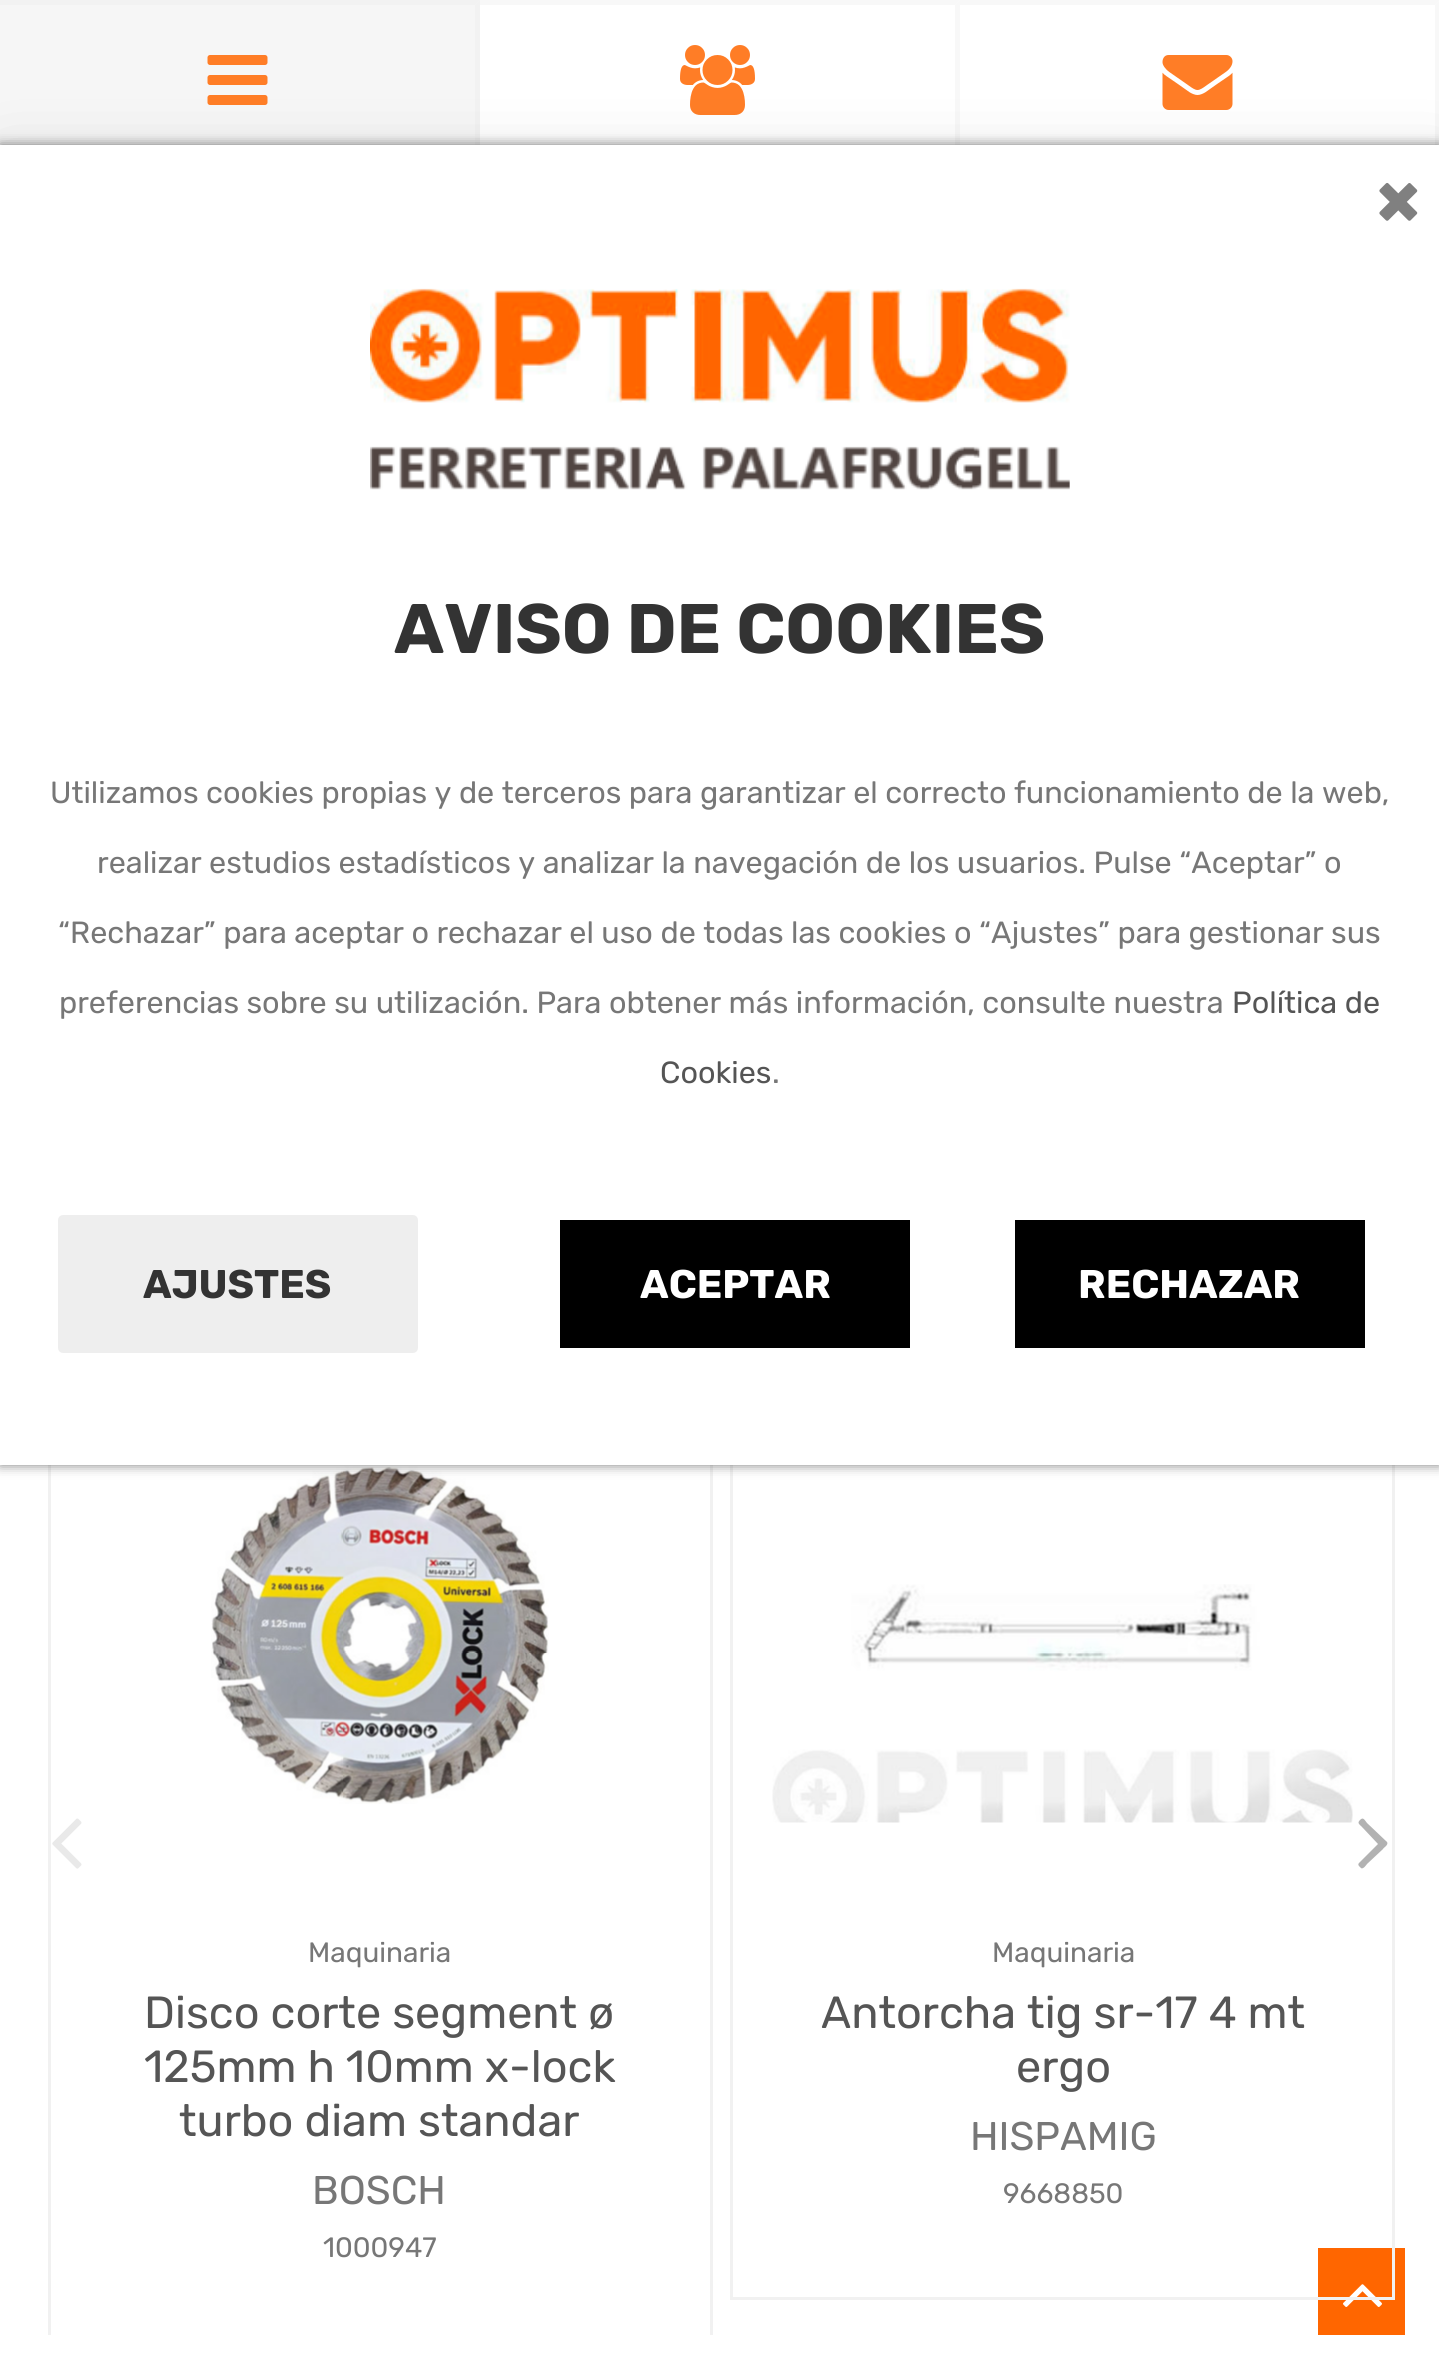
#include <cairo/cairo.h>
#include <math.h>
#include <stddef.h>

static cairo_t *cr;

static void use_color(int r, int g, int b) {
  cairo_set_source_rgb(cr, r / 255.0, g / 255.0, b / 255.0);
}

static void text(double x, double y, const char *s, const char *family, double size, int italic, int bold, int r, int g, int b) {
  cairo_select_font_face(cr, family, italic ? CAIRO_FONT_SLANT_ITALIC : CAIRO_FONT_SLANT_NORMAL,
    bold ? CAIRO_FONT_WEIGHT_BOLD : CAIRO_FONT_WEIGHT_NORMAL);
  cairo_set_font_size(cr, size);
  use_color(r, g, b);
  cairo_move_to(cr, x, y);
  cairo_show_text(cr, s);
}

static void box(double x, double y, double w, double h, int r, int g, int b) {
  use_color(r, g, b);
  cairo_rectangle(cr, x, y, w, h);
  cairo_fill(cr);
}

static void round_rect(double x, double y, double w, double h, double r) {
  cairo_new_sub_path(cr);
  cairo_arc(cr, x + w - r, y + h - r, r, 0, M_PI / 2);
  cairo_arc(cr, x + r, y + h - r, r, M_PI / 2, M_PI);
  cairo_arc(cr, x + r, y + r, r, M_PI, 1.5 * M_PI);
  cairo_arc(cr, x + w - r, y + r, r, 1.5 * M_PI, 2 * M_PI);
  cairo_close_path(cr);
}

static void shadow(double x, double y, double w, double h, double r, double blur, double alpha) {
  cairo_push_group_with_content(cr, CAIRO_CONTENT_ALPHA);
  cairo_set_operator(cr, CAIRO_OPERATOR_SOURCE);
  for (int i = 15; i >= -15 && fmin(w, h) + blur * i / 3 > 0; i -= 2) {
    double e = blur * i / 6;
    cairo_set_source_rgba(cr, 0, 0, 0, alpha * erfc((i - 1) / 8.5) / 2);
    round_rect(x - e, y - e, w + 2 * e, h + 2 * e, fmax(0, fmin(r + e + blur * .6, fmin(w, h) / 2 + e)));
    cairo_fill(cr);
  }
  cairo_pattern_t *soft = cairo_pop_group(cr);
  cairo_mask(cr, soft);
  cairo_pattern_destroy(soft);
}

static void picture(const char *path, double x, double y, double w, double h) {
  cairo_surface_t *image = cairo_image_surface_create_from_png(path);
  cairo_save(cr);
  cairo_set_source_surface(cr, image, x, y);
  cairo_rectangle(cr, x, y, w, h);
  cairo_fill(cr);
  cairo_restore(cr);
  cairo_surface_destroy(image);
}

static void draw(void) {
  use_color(255, 255, 255);
  cairo_paint(cr);
  box(0, 0, 480, 145, 246, 246, 246);
  use_color(242, 242, 242);
  cairo_new_path(cr);
  cairo_move_to(cr, 0, 0);
  cairo_line_to(cr, 480, 0);
  cairo_line_to(cr, 475, 5);
  cairo_line_to(cr, 0, 5);
  cairo_close_path(cr);
  cairo_fill(cr);
  cairo_new_path(cr);
  cairo_move_to(cr, 480, 0);
  cairo_line_to(cr, 480, 165);
  cairo_line_to(cr, 475, 160);
  cairo_line_to(cr, 475, 5);
  cairo_close_path(cr);
  cairo_fill(cr);
  use_color(248, 248, 248);
  cairo_new_path(cr);
  cairo_move_to(cr, 480, 0);
  cairo_line_to(cr, 960, 0);
  cairo_line_to(cr, 955, 5);
  cairo_line_to(cr, 480, 5);
  cairo_close_path(cr);
  cairo_fill(cr);
  cairo_set_source_rgba(cr, 0.91, 0.91, 0.91, 0.29);
  cairo_new_path(cr);
  cairo_move_to(cr, 960, 0);
  cairo_line_to(cr, 960, 165);
  cairo_line_to(cr, 955, 160);
  cairo_line_to(cr, 955, 5);
  cairo_close_path(cr);
  cairo_fill(cr);
  use_color(248, 248, 248);
  cairo_new_path(cr);
  cairo_move_to(cr, 960, 0);
  cairo_line_to(cr, 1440, 0);
  cairo_line_to(cr, 1435, 5);
  cairo_line_to(cr, 960, 5);
  cairo_close_path(cr);
  cairo_fill(cr);
  cairo_set_source_rgba(cr, 0.91, 0.91, 0.91, 0.29);
  cairo_new_path(cr);
  cairo_move_to(cr, 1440, 0);
  cairo_line_to(cr, 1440, 165);
  cairo_line_to(cr, 1435, 160);
  cairo_line_to(cr, 1435, 5);
  cairo_close_path(cr);
  cairo_fill(cr);
  cairo_rectangle(cr, 49.5, 1356.5, 662, 997);
  use_color(241, 241, 241);
  cairo_set_line_width(cr, 3);
  cairo_stroke(cr);
  picture("img_06.png", 211, 1466, 338, 338);
  box(1318, 2248, 87, 87, 255, 102, 0);
  picture("img_08.png", 1343, 2284, 39, 23);
  cairo_rectangle(cr, 731.5, 1356.5, 662, 942);
  use_color(241, 241, 241);
  cairo_stroke(cr);
  use_color(0, 0, 0);
  shadow(0, 145, 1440, 1320, 0, 6, 0.5);
  picture("img_02.png", 207, 55, 61, 50);
  picture("img_03.png", 680, 45, 75, 70);
  picture("img_04.png", 1162, 55, 71, 55);
  shadow(3, 168, 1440, 185, 0, 37.5, 0.15);
  box(0, 145, 1439, 1320, 255, 255, 255);
  picture("img_01.png", 370, 288, 700, 202);
  use_color(238, 238, 238);
  round_rect(60.5, 1217.5, 355, 133, 2.5);
  cairo_fill_preserve(cr);
  cairo_set_line_width(cr, 5);
  cairo_stroke(cr);
  use_color(0, 0, 0);
  round_rect(557.5, 1217.5, 355, 133, 2.5);
  cairo_fill_preserve(cr);
  use_color(255, 255, 255);
  cairo_stroke(cr);
  use_color(0, 0, 0);
  round_rect(1012.5, 1217.5, 355, 133, 2.5);
  cairo_fill_preserve(cr);
  use_color(255, 255, 255);
  cairo_stroke(cr);
  picture("img_05.png", 52, 1818, 30, 51);
  use_color(178, 178, 178);
  cairo_new_path(cr);
  cairo_move_to(cr, 1387, 1842);
  cairo_curve_to(cr, 1389, 1845, 1383, 1848, 1383, 1849);
  cairo_line_to(cr, 1367, 1864);
  cairo_curve_to(cr, 1367, 1864, 1363, 1870, 1361, 1868);
  cairo_curve_to(cr, 1360, 1867, 1357, 1865, 1359, 1863);
  cairo_line_to(cr, 1378, 1844);
  cairo_line_to(cr, 1362, 1827);
  cairo_curve_to(cr, 1359, 1824, 1357, 1823, 1360, 1820);
  cairo_curve_to(cr, 1363, 1817, 1364, 1819, 1367, 1823);
  cairo_close_path(cr);
  cairo_fill(cr);
  picture("img_07.png", 772, 1584, 581, 239);
  box(48, 2335, 665, 20, 255, 255, 255);
  text(1376, 224, "×", "Rubik", 74, 0, 1, 128, 128, 128);
  text(394, 653, "AVISO DE COOKIES", "Rubik", 70, 0, 1, 51, 51, 51);
  text(50, 803, "Utilizamos cookies propias y de terceros para garantizar el correcto funcionamiento de la web,", "Rubik", 30.6, 0, 0, 119, 119, 119);
  text(97, 873, "realizar estudios estadísticos y analizar la navegación de los usuarios. Pulse “Aceptar” o", "Rubik", 30.6, 0, 0, 119, 119, 119);
  text(58, 943, "“Rechazar” para aceptar o rechazar el uso de todas las cookies o “Ajustes” para gestionar sus", "Rubik", 30.6, 0, 0, 119, 119, 119);
  text(59, 1013, "preferencias sobre su utilización. Para obtener más información, consulte nuestra", "Rubik", 30.6, 0, 0, 119, 119, 119);
  text(1232, 1013, "Política de", "Rubik", 30.6, 0, 0, 85, 85, 85);
  text(660, 1083, "Cookies", "Rubik", 30.6, 0, 0, 85, 85, 85);
  text(772, 1083, ".", "Rubik", 30.6, 0, 0, 119, 119, 119);
  text(143, 1298, "AJUSTES", "Rubik", 40, 0, 1, 51, 51, 51);
  text(640, 1298, "ACEPTAR", "Rubik", 40, 0, 1, 255, 255, 255);
  text(1078, 1298, "RECHAZAR", "Rubik", 40, 0, 1, 255, 255, 255);
  text(308, 1962, "Maquinaria", "Rubik", 28, 0, 0, 119, 119, 119);
  text(144, 2028, "Disco corte segment ø", "Rubik", 45, 0, 0, 85, 85, 85);
  text(144, 2082, "125mm h 10mm x-lock", "Rubik", 45, 0, 0, 85, 85, 85);
  text(179, 2136, "turbo diam standar", "Rubik", 45, 0, 0, 85, 85, 85);
  text(312, 2204, "BOSCH", "Rubik", 40, 0, 0, 119, 119, 119);
  text(323, 2257, "1000947", "Rubik", 28, 0, 0, 119, 119, 119);
  text(992, 1962, "Maquinaria", "Rubik", 28, 0, 0, 119, 119, 119);
  text(821, 2028, "Antorcha tig sr-17 4 mt", "Rubik", 45, 0, 0, 85, 85, 85);
  text(1016, 2082, "ergo", "Rubik", 45, 0, 0, 85, 85, 85);
  text(970, 2150, "HISPAMIG", "Rubik", 40, 0, 0, 119, 119, 119);
  text(1003, 2203, "9668850", "Rubik", 28, 0, 0, 119, 119, 119);
}

int main(void) {
  cairo_surface_t *surface = cairo_image_surface_create(CAIRO_FORMAT_RGB24, 1439, 2368);
  cr = cairo_create(surface);
  cairo_font_options_t *options = cairo_font_options_create();
  cairo_font_options_set_hint_metrics(options, CAIRO_HINT_METRICS_OFF);
  cairo_font_options_set_hint_style(options, CAIRO_HINT_STYLE_NONE);
  cairo_set_font_options(cr, options);
  cairo_set_miter_limit(cr, 4);
  draw();
  cairo_surface_write_to_png(surface, "out.png");
  cairo_font_options_destroy(options);
  cairo_destroy(cr);
  cairo_surface_destroy(surface);
  return 0;
}
